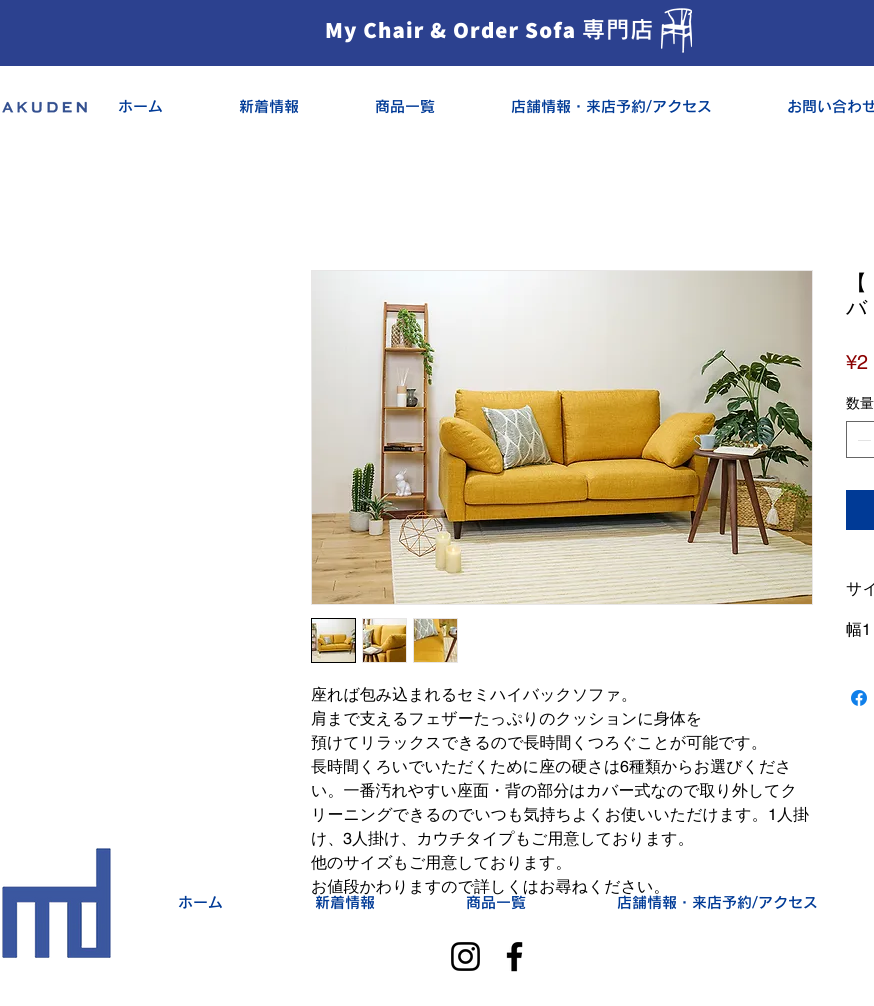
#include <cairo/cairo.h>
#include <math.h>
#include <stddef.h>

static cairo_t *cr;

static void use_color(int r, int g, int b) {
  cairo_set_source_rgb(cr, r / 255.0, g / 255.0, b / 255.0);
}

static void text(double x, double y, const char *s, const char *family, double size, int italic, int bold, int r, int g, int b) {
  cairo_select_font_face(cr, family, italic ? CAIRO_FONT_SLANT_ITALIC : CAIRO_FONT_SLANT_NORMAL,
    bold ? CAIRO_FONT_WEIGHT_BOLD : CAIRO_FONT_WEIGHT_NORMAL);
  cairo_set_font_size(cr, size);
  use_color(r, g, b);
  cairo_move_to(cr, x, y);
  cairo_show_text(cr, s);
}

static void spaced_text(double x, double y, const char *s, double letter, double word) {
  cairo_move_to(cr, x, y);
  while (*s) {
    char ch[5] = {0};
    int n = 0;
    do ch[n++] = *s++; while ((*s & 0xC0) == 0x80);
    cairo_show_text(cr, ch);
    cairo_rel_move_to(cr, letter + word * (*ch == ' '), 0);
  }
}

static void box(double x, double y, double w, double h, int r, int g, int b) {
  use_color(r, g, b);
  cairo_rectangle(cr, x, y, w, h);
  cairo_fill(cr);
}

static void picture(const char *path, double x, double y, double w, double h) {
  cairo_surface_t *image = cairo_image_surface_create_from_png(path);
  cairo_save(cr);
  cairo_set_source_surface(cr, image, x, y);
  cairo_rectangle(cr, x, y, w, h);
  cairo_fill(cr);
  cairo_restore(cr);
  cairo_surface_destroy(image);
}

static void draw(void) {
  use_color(255, 255, 255);
  cairo_paint(cr);
  box(0, 0, 874, 66, 44, 65, 143);
  picture("img_01.png", 661, 8, 31, 45);
  picture("img_02.png", 2, 101, 85, 12);
  cairo_rectangle(cr, 846.5, 421.5, 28, 36);
  use_color(102, 102, 102);
  cairo_set_line_width(cr, 1);
  cairo_stroke(cr);
  box(858, 440, 13, 1, 227, 227, 227);
  box(846, 490, 28, 40, 0, 58, 150);
  picture("img_03.png", 851, 690, 16, 16);
  cairo_rectangle(cr, 311.5, 270.5, 501, 334);
  use_color(232, 230, 230);
  cairo_stroke(cr);
  picture("img_04.png", 312, 271, 500, 333);
  cairo_rectangle(cr, 311.5, 618.5, 44, 44);
  use_color(0, 0, 0);
  cairo_stroke(cr);
  picture("img_05.png", 312, 619, 43, 43);
  cairo_rectangle(cr, 362.5, 618.5, 44, 44);
  use_color(232, 230, 230);
  cairo_stroke(cr);
  picture("img_06.png", 363, 619, 43, 43);
  cairo_rectangle(cr, 413.5, 618.5, 44, 44);
  cairo_stroke(cr);
  picture("img_07.png", 414, 619, 43, 43);
  picture("img_08.png", 2, 848, 109, 110);
  picture("img_09.png", 451, 942, 29, 29);
  picture("img_10.png", 506, 942, 17, 30);
  cairo_select_font_face(cr, "Assistant ExtraBold", CAIRO_FONT_SLANT_NORMAL, CAIRO_FONT_WEIGHT_NORMAL);
  cairo_set_font_size(cr, 23);
  use_color(255, 255, 255);
  spaced_text(325, 38, "My Chair & Order Sofa", 1.15, 0);
  cairo_select_font_face(cr, "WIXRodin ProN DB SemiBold", CAIRO_FONT_SLANT_NORMAL, CAIRO_FONT_WEIGHT_NORMAL);
  spaced_text(582, 38, "専門店", 1.15, 0);
  text(118, 112, "ホーム", "WIXRodin ProN DB SemiBold", 15, 0, 0, 0, 58, 150);
  text(239, 112, "新着情報", "WIXRodin ProN DB SemiBold", 15, 0, 0, 0, 58, 150);
  text(375, 112, "商品一覧", "WIXRodin ProN DB SemiBold", 15, 0, 0, 0, 58, 150);
  text(511, 112, "店舗情報・来店予約/アクセス", "WIXRodin ProN DB SemiBold", 15, 0, 0, 0, 58, 150);
  text(787, 112, "お問い合わせ", "WIXRodin ProN DB SemiBold", 15, 0, 0, 0, 58, 150);
  text(846, 290, "【", "WenQuanYi Zen Hei Medium", 21, 0, 0, 0, 0, 0);
  text(846, 315, "バ", "WenQuanYi Zen Hei Medium", 21, 0, 0, 0, 0, 0);
  text(846, 369, "¥2", "helvetica", 20, 0, 0, 139, 0, 0);
  text(846, 408, "数量", "WenQuanYi Zen Hei Medium", 14, 0, 0, 0, 0, 0);
  text(846, 594, "サイ", "WenQuanYi Zen Hei Medium", 16, 0, 0, 0, 0, 0);
  text(846, 635, "幅", "WenQuanYi Zen Hei Medium", 16, 0, 0, 0, 0, 0);
  text(862, 635, "1", "helvetica", 16, 0, 0, 0, 0, 0);
  text(311, 700, "座れば包み込まれるセミハイバックソファ。", "WenQuanYi Zen Hei Medium", 16, 0, 0, 0, 0, 0);
  text(311, 724, "肩まで支えるフェザーたっぷりのクッションに身体を", "WenQuanYi Zen Hei Medium", 16, 0, 0, 0, 0, 0);
  text(311, 748, "預けてリラックスできるので長時間くつろぐことが可能です。", "WenQuanYi Zen Hei Medium", 16, 0, 0, 0, 0, 0);
  text(311, 772, "長時間くろいでいただくために座の硬さは", "WenQuanYi Zen Hei Medium", 16, 0, 0, 0, 0, 0);
  text(620, 772, "6", "helvetica", 16, 0, 0, 0, 0, 0);
  text(629, 772, "種類からお選びくださ", "WenQuanYi Zen Hei Medium", 16, 0, 0, 0, 0, 0);
  text(311, 796, "い。一番汚れやすい座面・背の部分はカバー式なので取り外してク", "WenQuanYi Zen Hei Medium", 16, 0, 0, 0, 0, 0);
  text(311, 820, "リーニングできるのでいつも気持ちよくお使いいただけます。", "WenQuanYi Zen Hei Medium", 16, 0, 0, 0, 0, 0);
  text(768, 820, "1", "helvetica", 16, 0, 0, 0, 0, 0);
  text(777, 820, "人掛", "WenQuanYi Zen Hei Medium", 16, 0, 0, 0, 0, 0);
  text(311, 844, "け、", "WenQuanYi Zen Hei Medium", 16, 0, 0, 0, 0, 0);
  text(343, 844, "3", "helvetica", 16, 0, 0, 0, 0, 0);
  text(352, 844, "人掛け、カウチタイプもご用意しております。", "WenQuanYi Zen Hei Medium", 16, 0, 0, 0, 0, 0);
  text(311, 868, "他のサイズもご用意しております。", "WenQuanYi Zen Hei Medium", 16, 0, 0, 0, 0, 0);
  text(311, 892, "お値段かわりますので詳しくはお尋ねください。", "WenQuanYi Zen Hei Medium", 16, 0, 0, 0, 0, 0);
  text(178, 908, "ホーム", "WIXRodin ProN DB SemiBold", 15, 0, 0, 0, 58, 150);
  text(315, 908, "新着情報", "WIXRodin ProN DB SemiBold", 15, 0, 0, 0, 58, 150);
  text(466, 908, "商品一覧", "WIXRodin ProN DB SemiBold", 15, 0, 0, 0, 58, 150);
  text(617, 908, "店舗情報・来店予約/アクセス", "WIXRodin ProN DB SemiBold", 15, 0, 0, 0, 58, 150);
}

int main(void) {
  cairo_surface_t *surface = cairo_image_surface_create(CAIRO_FORMAT_RGB24, 874, 1006);
  cr = cairo_create(surface);
  cairo_font_options_t *options = cairo_font_options_create();
  cairo_font_options_set_hint_metrics(options, CAIRO_HINT_METRICS_OFF);
  cairo_font_options_set_hint_style(options, CAIRO_HINT_STYLE_NONE);
  cairo_set_font_options(cr, options);
  cairo_set_miter_limit(cr, 4);
  draw();
  cairo_surface_write_to_png(surface, "out.png");
  cairo_font_options_destroy(options);
  cairo_destroy(cr);
  cairo_surface_destroy(surface);
  return 0;
}
